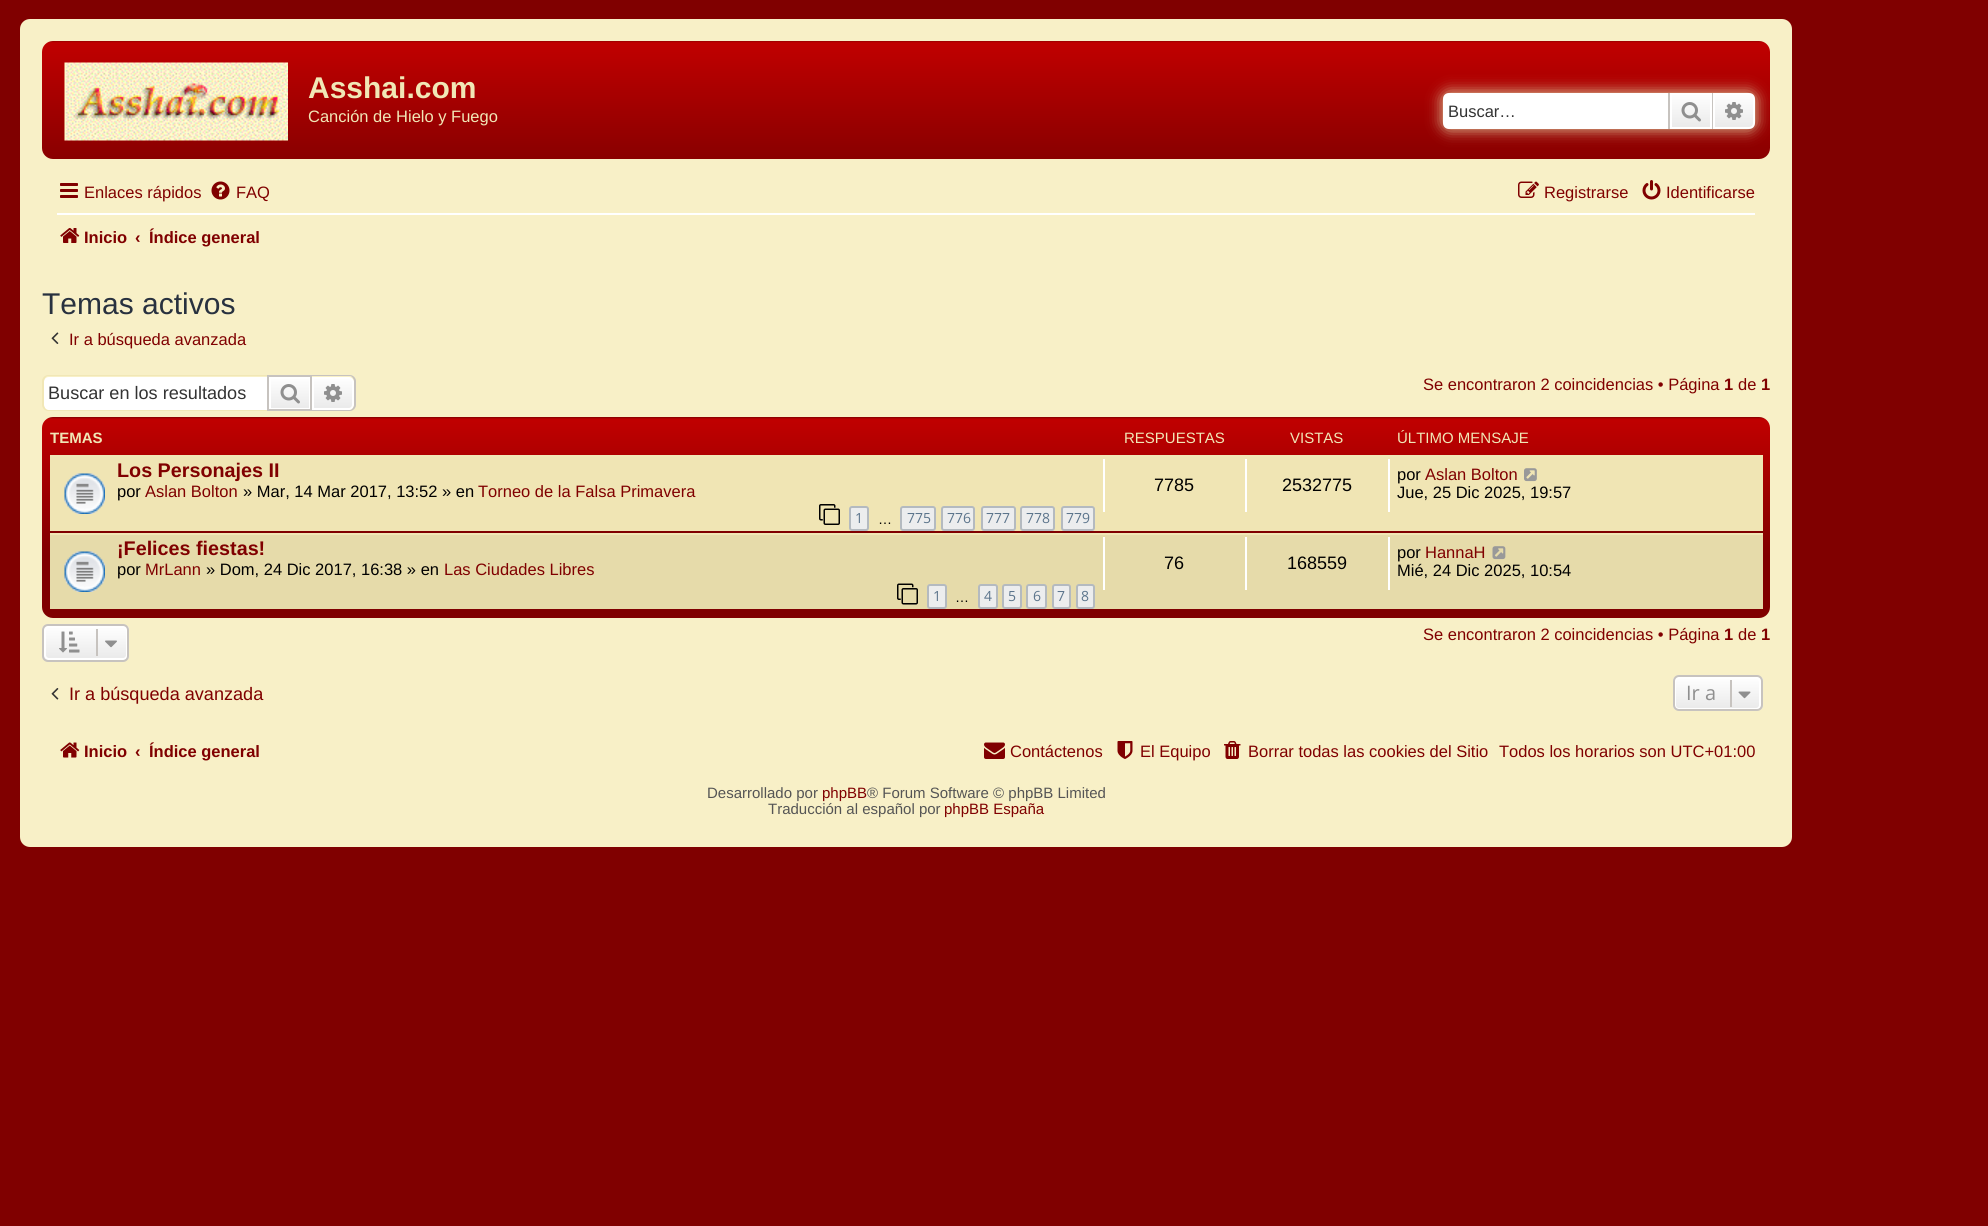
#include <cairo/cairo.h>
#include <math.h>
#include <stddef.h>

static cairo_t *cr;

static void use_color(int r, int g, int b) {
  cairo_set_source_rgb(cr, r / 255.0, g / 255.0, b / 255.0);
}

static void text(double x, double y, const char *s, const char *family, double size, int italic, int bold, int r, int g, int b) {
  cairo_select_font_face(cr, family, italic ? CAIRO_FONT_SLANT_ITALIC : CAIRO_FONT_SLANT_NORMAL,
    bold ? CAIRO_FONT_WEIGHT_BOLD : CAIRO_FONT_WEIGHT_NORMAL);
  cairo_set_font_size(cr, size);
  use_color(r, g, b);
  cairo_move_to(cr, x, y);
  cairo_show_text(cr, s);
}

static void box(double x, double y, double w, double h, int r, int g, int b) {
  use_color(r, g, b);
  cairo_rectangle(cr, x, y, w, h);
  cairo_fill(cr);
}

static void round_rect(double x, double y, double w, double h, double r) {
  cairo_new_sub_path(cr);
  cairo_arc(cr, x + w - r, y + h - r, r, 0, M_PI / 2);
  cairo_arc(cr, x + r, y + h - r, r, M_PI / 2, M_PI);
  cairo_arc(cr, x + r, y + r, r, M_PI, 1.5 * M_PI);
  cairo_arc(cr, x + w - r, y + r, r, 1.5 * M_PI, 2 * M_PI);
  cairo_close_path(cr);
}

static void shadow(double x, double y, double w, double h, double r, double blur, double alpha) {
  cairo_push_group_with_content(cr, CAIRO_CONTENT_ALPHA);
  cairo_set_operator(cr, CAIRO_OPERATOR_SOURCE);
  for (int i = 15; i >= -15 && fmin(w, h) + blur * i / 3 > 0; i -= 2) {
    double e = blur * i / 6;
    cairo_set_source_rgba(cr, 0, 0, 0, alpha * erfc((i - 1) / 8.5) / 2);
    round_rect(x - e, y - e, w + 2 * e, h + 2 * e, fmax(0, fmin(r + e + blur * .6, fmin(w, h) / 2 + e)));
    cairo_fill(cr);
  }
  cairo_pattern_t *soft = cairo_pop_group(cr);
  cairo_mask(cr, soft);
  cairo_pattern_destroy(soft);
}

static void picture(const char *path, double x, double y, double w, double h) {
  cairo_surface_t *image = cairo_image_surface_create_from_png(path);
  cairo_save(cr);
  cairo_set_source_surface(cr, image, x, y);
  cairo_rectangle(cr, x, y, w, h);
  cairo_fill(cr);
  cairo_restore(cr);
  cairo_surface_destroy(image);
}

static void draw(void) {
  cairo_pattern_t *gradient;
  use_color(128, 0, 0);
  cairo_paint(cr);
  use_color(248, 240, 199);
  round_rect(19, 18, 1774, 830, 11);
  cairo_fill_preserve(cr);
  use_color(128, 0, 0);
  cairo_stroke(cr);
  gradient = cairo_pattern_create_linear(906, 40, 906, 178);
  cairo_pattern_add_color_stop_rgba(gradient, 0, 0.502, 0, 0, 1);
  cairo_pattern_add_color_stop_rgba(gradient, 0.02, 0.753, 0, 0, 1);
  cairo_pattern_add_color_stop_rgba(gradient, 1, 0.502, 0, 0, 1);
  cairo_set_source(cr, gradient);
  cairo_pattern_destroy(gradient);
  round_rect(42, 41, 1728, 118, 11);
  cairo_fill(cr);
  picture("img_01.png", 64, 62, 224, 79);
  use_color(230, 219, 170);
  shadow(1443, 93, 312, 36, 6, 7.5, 1);
  use_color(255, 255, 255);
  cairo_new_path(cr);
  cairo_move_to(cr, 1449, 93);
  cairo_line_to(cr, 1668, 93);
  cairo_line_to(cr, 1668, 129);
  cairo_line_to(cr, 1449, 129);
  cairo_curve_to(cr, 1445.5, 129, 1443, 126.5, 1443, 123);
  cairo_line_to(cr, 1443, 99);
  cairo_curve_to(cr, 1443, 95.5, 1445.5, 93, 1449, 93);
  cairo_close_path(cr);
  cairo_fill(cr);
  gradient = cairo_pattern_create_linear(1691, 93, 1691, 129);
  cairo_pattern_add_color_stop_rgba(gradient, 0, 1, 1, 1, 1);
  cairo_pattern_add_color_stop_rgba(gradient, 1, 0.914, 0.914, 0.914, 1);
  cairo_set_source(cr, gradient);
  cairo_pattern_destroy(gradient);
  cairo_rectangle(cr, 1672, 95, 38, 32);
  cairo_fill(cr);
  cairo_rectangle(cr, 1671, 94, 40, 34);
  use_color(255, 255, 255);
  cairo_stroke(cr);
  box(1712, 93, 1, 36, 199, 195, 191);
  box(1668, 93, 2, 36, 199, 195, 191);
  picture("img_02.png", 1681, 102, 20, 20);
  gradient = cairo_pattern_create_linear(1734, 93, 1734, 129);
  cairo_pattern_add_color_stop_rgba(gradient, 0, 1, 1, 1, 1);
  cairo_pattern_add_color_stop_rgba(gradient, 1, 0.914, 0.914, 0.914, 1);
  cairo_set_source(cr, gradient);
  cairo_pattern_destroy(gradient);
  cairo_new_path(cr);
  cairo_move_to(cr, 1714, 94);
  cairo_line_to(cr, 1749, 94);
  cairo_curve_to(cr, 1752, 94, 1754, 96, 1754, 99);
  cairo_line_to(cr, 1754, 123);
  cairo_curve_to(cr, 1754, 126, 1752, 128, 1749, 128);
  cairo_line_to(cr, 1714, 128);
  cairo_close_path(cr);
  cairo_fill_preserve(cr);
  use_color(255, 255, 255);
  cairo_stroke(cr);
  picture("img_03.png", 1725, 102, 18, 18);
  picture("img_04.png", 60, 183, 18, 15);
  picture("img_05.png", 211, 181, 19, 19);
  picture("img_06.png", 1518, 181, 21, 17);
  picture("img_07.png", 1642, 180, 19, 20);
  box(57, 213, 1698, 2, 255, 255, 255);
  picture("img_08.png", 60, 228, 20, 15);
  picture("img_09.png", 51, 332, 8, 12);
  cairo_new_path(cr);
  cairo_move_to(cr, 49, 377);
  cairo_line_to(cr, 267, 377);
  cairo_line_to(cr, 267, 410);
  cairo_line_to(cr, 49, 410);
  cairo_curve_to(cr, 46, 410, 44, 408, 44, 405);
  cairo_line_to(cr, 44, 382);
  cairo_curve_to(cr, 44, 379, 46, 377, 49, 377);
  cairo_close_path(cr);
  cairo_fill(cr);
  use_color(241, 231, 182);
  cairo_set_fill_rule(cr, CAIRO_FILL_RULE_EVEN_ODD);
  cairo_new_path(cr);
  cairo_move_to(cr, 48, 375);
  cairo_line_to(cr, 267, 375);
  cairo_line_to(cr, 267, 411);
  cairo_line_to(cr, 48, 411);
  cairo_curve_to(cr, 45, 411, 42, 408, 42, 405);
  cairo_line_to(cr, 42, 381);
  cairo_curve_to(cr, 42, 378, 45, 375, 48, 375);
  cairo_close_path(cr);
  cairo_move_to(cr, 48, 376);
  cairo_line_to(cr, 267, 376);
  cairo_line_to(cr, 267, 410);
  cairo_line_to(cr, 48, 410);
  cairo_curve_to(cr, 46, 410, 44, 407, 44, 405);
  cairo_line_to(cr, 44, 381);
  cairo_curve_to(cr, 44, 379, 46, 376, 48, 376);
  cairo_close_path(cr);
  cairo_fill(cr);
  gradient = cairo_pattern_create_linear(290, 377, 290, 410);
  cairo_pattern_add_color_stop_rgba(gradient, 0, 1, 1, 1, 1);
  cairo_pattern_add_color_stop_rgba(gradient, 1, 0.914, 0.914, 0.914, 1);
  cairo_set_source(cr, gradient);
  cairo_pattern_destroy(gradient);
  cairo_rectangle(cr, 271, 379, 38, 29);
  cairo_fill(cr);
  cairo_rectangle(cr, 270, 378, 40, 31);
  use_color(255, 255, 255);
  cairo_stroke(cr);
  cairo_rectangle(cr, 268, 376, 43, 34);
  use_color(199, 195, 191);
  cairo_stroke(cr);
  picture("img_10.png", 280, 384, 20, 20);
  gradient = cairo_pattern_create_linear(333, 377, 333, 410);
  cairo_pattern_add_color_stop_rgba(gradient, 0, 1, 1, 1, 1);
  cairo_pattern_add_color_stop_rgba(gradient, 1, 0.914, 0.914, 0.914, 1);
  cairo_set_source(cr, gradient);
  cairo_pattern_destroy(gradient);
  cairo_new_path(cr);
  cairo_move_to(cr, 313, 378);
  cairo_line_to(cr, 349, 378);
  cairo_curve_to(cr, 351, 378, 353, 380, 353, 382);
  cairo_line_to(cr, 353, 405);
  cairo_curve_to(cr, 353, 407, 351, 409, 349, 409);
  cairo_line_to(cr, 313, 409);
  cairo_close_path(cr);
  cairo_fill_preserve(cr);
  use_color(255, 255, 255);
  cairo_stroke(cr);
  use_color(199, 195, 191);
  cairo_new_path(cr);
  cairo_move_to(cr, 312, 375);
  cairo_line_to(cr, 350, 375);
  cairo_curve_to(cr, 353, 375, 356, 378, 356, 381);
  cairo_line_to(cr, 356, 405);
  cairo_curve_to(cr, 356, 408, 353, 411, 350, 411);
  cairo_line_to(cr, 312, 411);
  cairo_close_path(cr);
  cairo_move_to(cr, 312, 376);
  cairo_line_to(cr, 350, 376);
  cairo_curve_to(cr, 352, 376, 354, 379, 354, 381);
  cairo_line_to(cr, 354, 405);
  cairo_curve_to(cr, 354, 407, 352, 410, 350, 410);
  cairo_line_to(cr, 312, 410);
  cairo_close_path(cr);
  cairo_fill(cr);
  picture("img_11.png", 324, 384, 18, 18);
  gradient = cairo_pattern_create_linear(906, 417, 906, 618);
  cairo_pattern_add_color_stop_rgba(gradient, 0, 0.502, 0, 0, 1);
  cairo_pattern_add_color_stop_rgba(gradient, 0.01, 0.753, 0, 0, 1);
  cairo_pattern_add_color_stop_rgba(gradient, 0.69, 0.502, 0, 0, 1);
  cairo_pattern_add_color_stop_rgba(gradient, 1, 0.502, 0, 0, 1);
  cairo_set_source(cr, gradient);
  cairo_pattern_destroy(gradient);
  round_rect(42, 417, 1728, 201, 11);
  cairo_fill(cr);
  box(50, 457, 1713, 74, 240, 229, 180);
  box(50, 455, 1713, 2, 241, 231, 182);
  box(50, 531, 1713, 2, 128, 0, 0);
  picture("img_12.png", 64, 473, 41, 41);
  picture("img_13.png", 819, 504, 21, 21);
  use_color(236, 237, 238);
  round_rect(850, 507, 18, 23, 2);
  cairo_fill_preserve(cr);
  use_color(180, 186, 192);
  cairo_stroke(cr);
  use_color(236, 237, 238);
  round_rect(901, 507, 34, 23, 2);
  cairo_fill_preserve(cr);
  use_color(180, 186, 192);
  cairo_stroke(cr);
  use_color(236, 237, 238);
  round_rect(942, 507, 32, 23, 2);
  cairo_fill_preserve(cr);
  use_color(180, 186, 192);
  cairo_stroke(cr);
  use_color(236, 237, 238);
  round_rect(982, 507, 33, 23, 2);
  cairo_fill_preserve(cr);
  use_color(180, 186, 192);
  cairo_stroke(cr);
  use_color(236, 237, 238);
  round_rect(1021, 507, 33, 23, 2);
  cairo_fill_preserve(cr);
  use_color(180, 186, 192);
  cairo_stroke(cr);
  use_color(236, 237, 238);
  round_rect(1062, 507, 32, 23, 2);
  cairo_fill_preserve(cr);
  use_color(180, 186, 192);
  cairo_stroke(cr);
  box(1103, 459, 2, 53, 255, 255, 255);
  box(1245, 459, 2, 53, 255, 255, 255);
  box(1388, 459, 2, 53, 255, 255, 255);
  picture("img_14.png", 1524, 468, 13, 14);
  box(50, 535, 1713, 74, 230, 219, 170);
  box(50, 533, 1713, 2, 241, 231, 182);
  picture("img_15.png", 64, 551, 41, 41);
  picture("img_16.png", 897, 583, 21, 22);
  use_color(236, 237, 238);
  round_rect(928, 585, 18, 23, 2);
  cairo_fill_preserve(cr);
  use_color(180, 186, 192);
  cairo_stroke(cr);
  use_color(236, 237, 238);
  round_rect(979, 585, 18, 23, 2);
  cairo_fill_preserve(cr);
  use_color(180, 186, 192);
  cairo_stroke(cr);
  use_color(236, 237, 238);
  round_rect(1003, 585, 18, 23, 2);
  cairo_fill_preserve(cr);
  use_color(180, 186, 192);
  cairo_stroke(cr);
  use_color(236, 237, 238);
  round_rect(1027, 585, 19, 23, 2);
  cairo_fill_preserve(cr);
  use_color(180, 186, 192);
  cairo_stroke(cr);
  use_color(236, 237, 238);
  round_rect(1053, 585, 17, 23, 2);
  cairo_fill_preserve(cr);
  use_color(180, 186, 192);
  cairo_stroke(cr);
  use_color(236, 237, 238);
  round_rect(1077, 585, 17, 23, 2);
  cairo_fill_preserve(cr);
  use_color(180, 186, 192);
  cairo_stroke(cr);
  box(1103, 537, 2, 53, 255, 255, 255);
  box(1245, 537, 2, 53, 255, 255, 255);
  box(1388, 537, 2, 53, 255, 255, 255);
  picture("img_17.png", 1492, 546, 14, 14);
  cairo_save(cr);
  cairo_set_fill_rule(cr, CAIRO_FILL_RULE_WINDING);
  round_rect(42, 624, 87, 38, 6);
  cairo_clip(cr);
  gradient = cairo_pattern_create_linear(86, 626, 86, 660);
  cairo_pattern_add_color_stop_rgba(gradient, 0, 1, 1, 1, 1);
  cairo_pattern_add_color_stop_rgba(gradient, 1, 0.914, 0.914, 0.914, 1);
  cairo_set_source(cr, gradient);
  cairo_pattern_destroy(gradient);
  cairo_rectangle(cr, 42, 626, 87, 34);
  cairo_fill(cr);
  cairo_restore(cr);
  round_rect(45, 627, 82, 32, 4);
  cairo_stroke(cr);
  round_rect(43, 625, 85, 36, 5);
  use_color(199, 195, 191);
  cairo_stroke(cr);
  picture("img_18.png", 59, 631, 21, 22);
  box(96, 629, 2, 27, 199, 195, 191);
  picture("img_19.png", 105, 640, 12, 8);
  picture("img_20.png", 51, 688, 8, 12);
  cairo_save(cr);
  cairo_set_fill_rule(cr, CAIRO_FILL_RULE_WINDING);
  round_rect(1673, 675, 90, 36, 6);
  cairo_clip(cr);
  gradient = cairo_pattern_create_linear(1718, 677, 1718, 710);
  cairo_pattern_add_color_stop_rgba(gradient, 0, 1, 1, 1, 1);
  cairo_pattern_add_color_stop_rgba(gradient, 1, 0.914, 0.914, 0.914, 1);
  cairo_set_source(cr, gradient);
  cairo_pattern_destroy(gradient);
  cairo_rectangle(cr, 1673, 677, 90, 33);
  cairo_fill(cr);
  cairo_restore(cr);
  round_rect(1675, 678, 85, 31, 4);
  use_color(255, 255, 255);
  cairo_stroke(cr);
  round_rect(1674, 676, 88, 34, 5);
  use_color(199, 195, 191);
  cairo_stroke(cr);
  box(1730, 680, 2, 27, 199, 195, 191);
  picture("img_21.png", 1738, 691, 13, 8);
  picture("img_22.png", 60, 742, 20, 16);
  picture("img_23.png", 984, 742, 21, 17);
  picture("img_24.png", 1117, 741, 16, 18);
  picture("img_25.png", 1224, 741, 17, 18);
  text(308, 98, "Asshai.com", "Liberation Sans", 30, 0, 1, 241, 231, 182);
  text(308, 122, "Canción de Hielo y Fuego", "Liberation Sans", 16.5, 0, 0, 241, 231, 182);
  text(1448, 117, "Buscar…", "Liberation Sans", 16.5, 0, 0, 51, 51, 51);
  text(84, 198, "Enlaces rápidos", "Liberation Sans", 16.5, 0, 0, 128, 0, 0);
  text(236, 198, "FAQ", "Liberation Sans", 16.5, 0, 0, 128, 0, 0);
  text(1544, 198, "Registrarse", "Liberation Sans", 16.5, 0, 0, 128, 0, 0);
  text(1666, 198, "Identificarse", "Liberation Sans", 16.5, 0, 0, 128, 0, 0);
  text(84, 243, "Inicio", "Liberation Sans", 16.5, 0, 1, 128, 0, 0);
  text(135, 243, "‹", "Liberation Sans", 16.5, 0, 1, 128, 0, 0);
  text(149, 243, "Índice general", "Liberation Sans", 16.5, 0, 1, 128, 0, 0);
  text(42, 314, "Temas activos", "Liberation Sans", 30, 0, 0, 40, 49, 63);
  text(69, 345, "Ir a búsqueda avanzada", "Liberation Sans", 16.5, 0, 0, 128, 0, 0);
  text(48, 399, "Buscar en los resultados", "Liberation Sans", 18.1, 0, 0, 51, 51, 51);
  text(1423, 390, "Se encontraron 2 coincidencias • Página", "Liberation Sans", 16.5, 0, 0, 128, 0, 0);
  text(1724, 390, "1", "Liberation Sans", 16.5, 0, 1, 128, 0, 0);
  text(1738, 390, "de", "Liberation Sans", 16.5, 0, 0, 128, 0, 0);
  text(1761, 390, "1", "Liberation Sans", 16.5, 0, 1, 128, 0, 0);
  cairo_save(cr);
  cairo_set_fill_rule(cr, CAIRO_FILL_RULE_WINDING);
  cairo_rectangle(cr, 50, 425, 1713, 30);
  cairo_clip(cr);
  text(50, 443, "TEMAS", "Liberation Sans", 15, 0, 1, 241, 231, 182);
  cairo_restore(cr);
  text(1124, 443, "RESPUESTAS", "Liberation Sans", 15, 0, 0, 241, 231, 182);
  text(1290, 443, "VISTAS", "Liberation Sans", 15, 0, 0, 241, 231, 182);
  text(1397, 443, "ÚLTIMO MENSAJE", "Liberation Sans", 15, 0, 0, 241, 231, 182);
  text(117, 477, "Los Personajes II", "Liberation Sans", 19.75, 0, 1, 128, 0, 0);
  text(117, 497, "por", "Liberation Sans", 16.5, 0, 0, 0, 0, 0);
  text(145, 497, "Aslan Bolton", "Liberation Sans", 16.5, 0, 0, 128, 0, 0);
  text(243, 497, "» Mar, 14 Mar 2017, 13:52 » en", "Liberation Sans", 16.5, 0, 0, 0, 0, 0);
  text(478, 497, "Torneo de la Falsa Primavera", "Liberation Sans", 16.5, 0, 0, 128, 0, 0);
  text(855, 523, "1", "Open Sans", 14, 0, 0, 92, 117, 140);
  text(878, 524, "…", "Liberation Sans", 14, 0, 0, 0, 0, 0);
  text(907, 523, "775", "Open Sans", 14, 0, 0, 92, 117, 140);
  text(947, 523, "776", "Open Sans", 14, 0, 0, 92, 117, 140);
  text(986, 523, "777", "Open Sans", 14, 0, 0, 92, 117, 140);
  text(1026, 523, "778", "Open Sans", 14, 0, 0, 92, 117, 140);
  text(1066, 523, "779", "Open Sans", 14, 0, 0, 92, 117, 140);
  text(1154, 491, "7785", "Liberation Sans", 18, 0, 0, 0, 0, 0);
  text(1282, 491, "2532775", "Liberation Sans", 18, 0, 0, 0, 0, 0);
  text(1397, 480, "por", "Liberation Sans", 16.5, 0, 0, 0, 0, 0);
  text(1425, 480, "Aslan Bolton", "Liberation Sans", 16.5, 0, 0, 128, 0, 0);
  text(1397, 498, "Jue, 25 Dic 2025, 19:57", "Liberation Sans", 16.5, 0, 0, 0, 0, 0);
  text(117, 555, "¡Felices fiestas!", "Liberation Sans", 19.75, 0, 1, 128, 0, 0);
  text(117, 575, "por", "Liberation Sans", 16.5, 0, 0, 0, 0, 0);
  text(145, 575, "MrLann", "Liberation Sans", 16.5, 0, 0, 128, 0, 0);
  text(206, 575, "» Dom, 24 Dic 2017, 16:38 » en", "Liberation Sans", 16.5, 0, 0, 0, 0, 0);
  text(444, 575, "Las Ciudades Libres", "Liberation Sans", 16.5, 0, 0, 128, 0, 0);
  text(933, 601, "1", "Open Sans", 14, 0, 0, 92, 117, 140);
  text(955, 602, "…", "Liberation Sans", 14, 0, 0, 0, 0, 0);
  text(984, 601, "4", "Open Sans", 14, 0, 0, 92, 117, 140);
  text(1008, 601, "5", "Open Sans", 14, 0, 0, 92, 117, 140);
  text(1033, 601, "6", "Open Sans", 14, 0, 0, 92, 117, 140);
  text(1057, 601, "7", "Open Sans", 14, 0, 0, 92, 117, 140);
  text(1081, 601, "8", "Open Sans", 14, 0, 0, 92, 117, 140);
  text(1164, 569, "76", "Liberation Sans", 18, 0, 0, 0, 0, 0);
  text(1287, 569, "168559", "Liberation Sans", 18, 0, 0, 0, 0, 0);
  text(1397, 558, "por", "Liberation Sans", 16.5, 0, 0, 0, 0, 0);
  text(1425, 558, "HannaH", "Liberation Sans", 16.5, 0, 0, 128, 0, 0);
  text(1397, 576, "Mié, 24 Dic 2025, 10:54", "Liberation Sans", 16.5, 0, 0, 0, 0, 0);
  text(1423, 640, "Se encontraron 2 coincidencias • Página", "Liberation Sans", 16.5, 0, 0, 128, 0, 0);
  text(1724, 640, "1", "Liberation Sans", 16.5, 0, 1, 128, 0, 0);
  text(1738, 640, "de", "Liberation Sans", 16.5, 0, 0, 128, 0, 0);
  text(1761, 640, "1", "Liberation Sans", 16.5, 0, 1, 128, 0, 0);
  text(69, 700, "Ir a búsqueda avanzada", "Liberation Sans", 18.1, 0, 0, 128, 0, 0);
  text(1686, 700, "Ir a", "Open Sans", 20, 0, 0, 143, 143, 143);
  text(84, 757, "Inicio", "Liberation Sans", 16.5, 0, 1, 128, 0, 0);
  text(135, 757, "‹", "Liberation Sans", 16.5, 0, 1, 128, 0, 0);
  text(149, 757, "Índice general", "Liberation Sans", 16.5, 0, 1, 128, 0, 0);
  text(1010, 757, "Contáctenos", "Liberation Sans", 16.5, 0, 0, 128, 0, 0);
  text(1140, 757, "El Equipo", "Liberation Sans", 16.5, 0, 0, 128, 0, 0);
  text(1248, 757, "Borrar todas las cookies del Sitio", "Liberation Sans", 16.5, 0, 0, 128, 0, 0);
  text(1499, 757, "Todos los horarios son UTC+01:00", "Liberation Sans", 16.5, 0, 0, 128, 0, 0);
  text(707, 798, "Desarrollado por", "Liberation Sans", 15, 0, 0, 85, 85, 85);
  text(822, 798, "phpBB", "Liberation Sans", 15, 0, 0, 128, 0, 0);
  text(867, 798, "® Forum Software © phpBB Limited", "Liberation Sans", 15, 0, 0, 85, 85, 85);
  text(768, 814, "Traducción al español por", "Liberation Sans", 15, 0, 0, 85, 85, 85);
  text(944, 814, "phpBB España", "Liberation Sans", 15, 0, 0, 128, 0, 0);
}

int main(void) {
  cairo_surface_t *surface = cairo_image_surface_create(CAIRO_FORMAT_RGB24, 1988, 1226);
  cr = cairo_create(surface);
  cairo_font_options_t *options = cairo_font_options_create();
  cairo_font_options_set_hint_metrics(options, CAIRO_HINT_METRICS_OFF);
  cairo_font_options_set_hint_style(options, CAIRO_HINT_STYLE_NONE);
  cairo_set_font_options(cr, options);
  cairo_set_miter_limit(cr, 4);
  draw();
  cairo_surface_write_to_png(surface, "out.png");
  cairo_font_options_destroy(options);
  cairo_destroy(cr);
  cairo_surface_destroy(surface);
  return 0;
}
